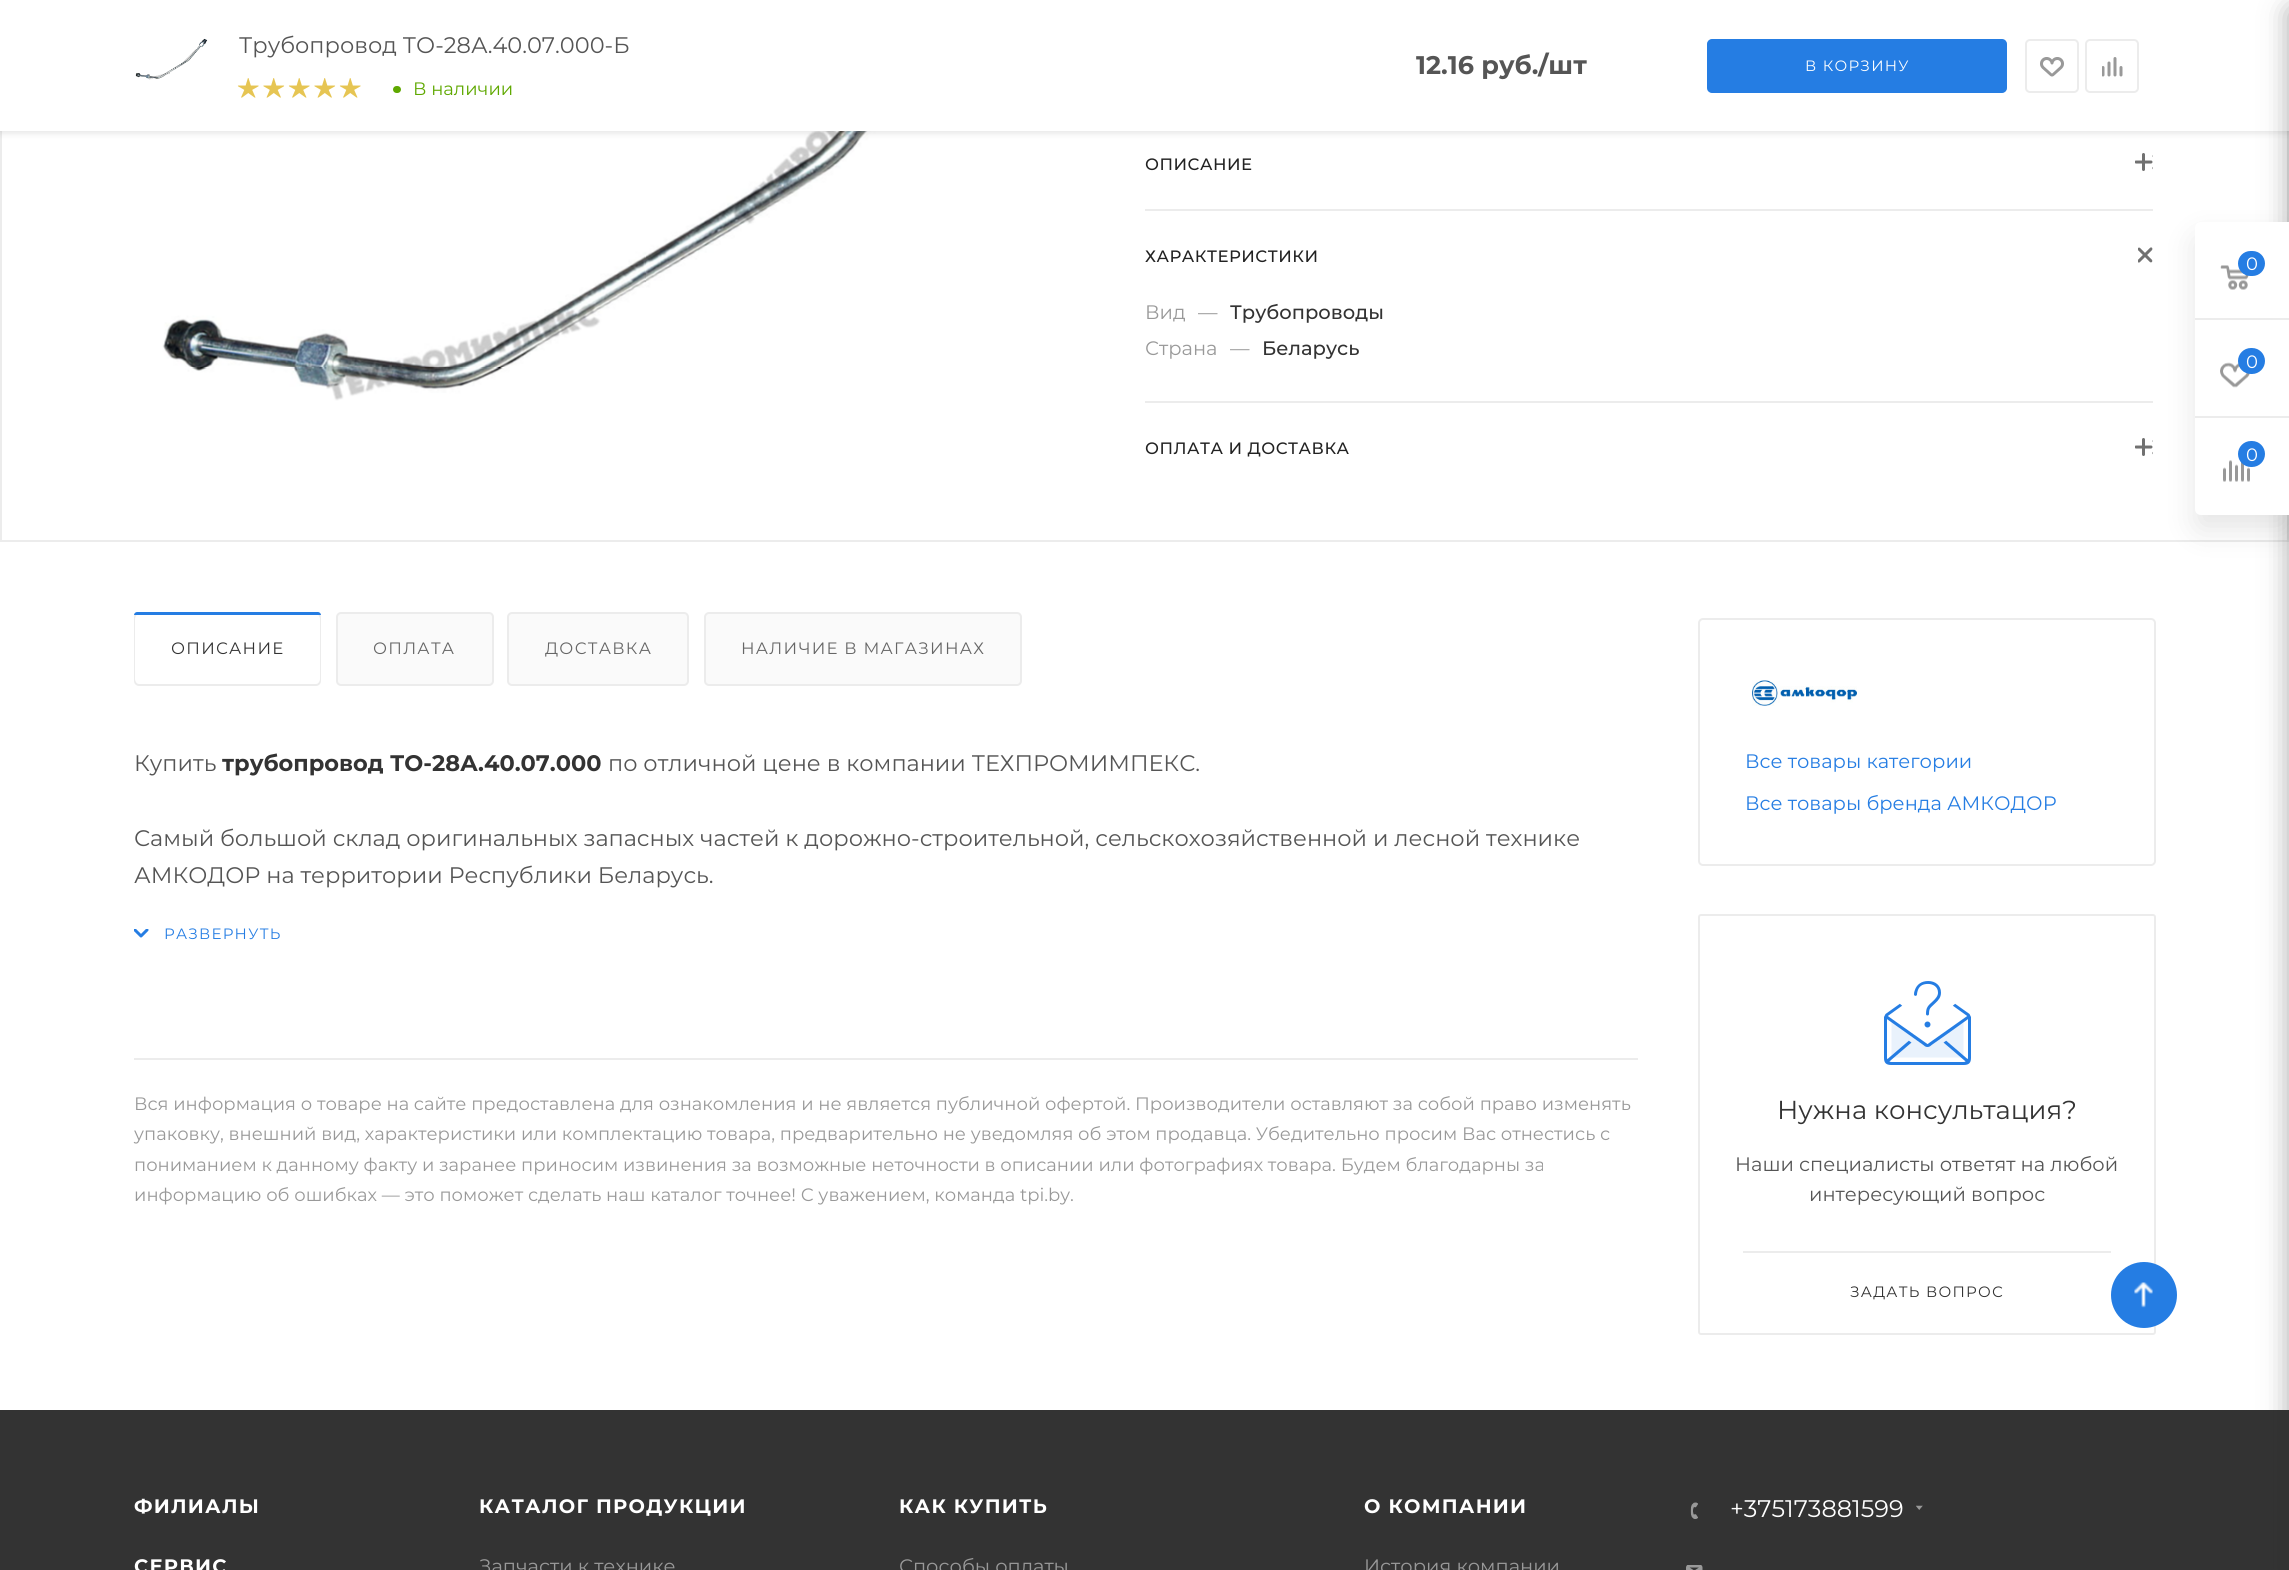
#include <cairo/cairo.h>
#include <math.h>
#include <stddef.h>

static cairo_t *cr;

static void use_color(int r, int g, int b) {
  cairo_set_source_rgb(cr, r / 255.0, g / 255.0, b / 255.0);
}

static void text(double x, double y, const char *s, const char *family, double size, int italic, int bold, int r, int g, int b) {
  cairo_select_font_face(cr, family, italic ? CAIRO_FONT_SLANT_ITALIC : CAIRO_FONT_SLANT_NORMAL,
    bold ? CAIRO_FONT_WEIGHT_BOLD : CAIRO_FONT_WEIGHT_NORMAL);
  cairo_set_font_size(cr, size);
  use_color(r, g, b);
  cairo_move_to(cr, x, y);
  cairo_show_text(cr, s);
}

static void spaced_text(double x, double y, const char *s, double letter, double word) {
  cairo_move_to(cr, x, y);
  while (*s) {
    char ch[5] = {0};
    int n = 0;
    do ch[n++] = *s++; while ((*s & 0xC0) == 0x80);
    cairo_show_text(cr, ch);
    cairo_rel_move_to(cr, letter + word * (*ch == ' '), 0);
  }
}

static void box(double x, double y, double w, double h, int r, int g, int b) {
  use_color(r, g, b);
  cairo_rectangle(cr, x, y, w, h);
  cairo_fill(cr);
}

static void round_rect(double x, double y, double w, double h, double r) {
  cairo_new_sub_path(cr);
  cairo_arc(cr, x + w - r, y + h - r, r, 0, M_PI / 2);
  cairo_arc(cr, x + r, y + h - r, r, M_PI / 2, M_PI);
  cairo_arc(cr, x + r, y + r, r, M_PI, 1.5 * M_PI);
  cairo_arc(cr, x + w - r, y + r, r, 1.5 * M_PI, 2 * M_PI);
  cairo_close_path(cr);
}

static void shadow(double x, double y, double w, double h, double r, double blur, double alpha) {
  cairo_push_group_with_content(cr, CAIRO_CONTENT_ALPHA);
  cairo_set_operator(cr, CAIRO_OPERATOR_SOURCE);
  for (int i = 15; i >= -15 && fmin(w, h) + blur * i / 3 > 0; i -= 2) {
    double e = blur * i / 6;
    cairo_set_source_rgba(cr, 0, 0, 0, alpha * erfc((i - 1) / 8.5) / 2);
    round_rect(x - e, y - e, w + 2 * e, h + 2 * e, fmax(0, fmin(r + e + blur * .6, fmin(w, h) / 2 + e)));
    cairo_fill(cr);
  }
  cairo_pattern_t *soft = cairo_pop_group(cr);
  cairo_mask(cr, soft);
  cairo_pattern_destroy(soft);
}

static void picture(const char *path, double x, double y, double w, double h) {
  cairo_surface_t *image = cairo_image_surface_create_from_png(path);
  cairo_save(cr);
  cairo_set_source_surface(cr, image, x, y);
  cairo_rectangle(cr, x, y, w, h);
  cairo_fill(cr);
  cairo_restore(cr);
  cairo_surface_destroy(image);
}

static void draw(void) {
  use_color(255, 255, 255);
  cairo_paint(cr);
  cairo_rectangle(cr, 1, -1, 2287, 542);
  use_color(236, 236, 236);
  cairo_stroke(cr);
  picture("img_06.png", 162, 131, 820, 270);
  use_color(0, 0, 0);
  shadow(0, 2, 2289, 130, 0, 4, 0.14);
  box(0, 0, 2289, 131, 255, 255, 255);
  picture("img_01.png", 135, 38, 73, 42);
  picture("img_02.png", 237, 78, 22, 20);
  picture("img_03.png", 263, 78, 22, 20);
  picture("img_02.png", 288, 78, 22, 20);
  picture("img_03.png", 314, 78, 22, 20);
  picture("img_02.png", 339, 78, 22, 20);
  use_color(95, 168, 0);
  round_rect(393, 86, 8, 7, 3.5);
  cairo_fill(cr);
  use_color(37, 125, 227);
  round_rect(1708, 40, 298, 52, 4);
  cairo_fill_preserve(cr);
  cairo_stroke(cr);
  round_rect(2026, 40, 52, 52, 4);
  use_color(236, 236, 236);
  cairo_stroke(cr);
  picture("img_04.png", 2040, 57, 24, 20);
  round_rect(2086, 40, 52, 52, 4);
  cairo_stroke(cr);
  picture("img_05.png", 2102, 57, 21, 20);
  picture("img_07.png", 2135, 153, 18, 18);
  box(1145, 209, 1008, 2, 236, 236, 236);
  picture("img_08.png", 2138, 247, 15, 16);
  box(1145, 401, 1008, 2, 236, 236, 236);
  picture("img_07.png", 2135, 438, 18, 18);
  use_color(250, 250, 250);
  round_rect(135, 613, 185, 72, 4);
  cairo_fill_preserve(cr);
  use_color(236, 236, 236);
  cairo_stroke(cr);
  use_color(255, 255, 255);
  round_rect(135, 614, 185, 70, 5);
  cairo_fill(cr);
  use_color(37, 125, 227);
  cairo_new_path(cr);
  cairo_move_to(cr, 137, 612);
  cairo_line_to(cr, 318, 612);
  cairo_curve_to(cr, 319.5, 612, 321, 613.5, 321, 615);
  cairo_line_to(cr, 134, 615);
  cairo_curve_to(cr, 134, 613.5, 135.5, 612, 137, 612);
  cairo_close_path(cr);
  cairo_fill(cr);
  use_color(250, 250, 250);
  round_rect(337, 613, 156, 72, 4);
  cairo_fill_preserve(cr);
  use_color(236, 236, 236);
  cairo_stroke(cr);
  use_color(250, 250, 250);
  round_rect(508, 613, 180, 72, 4);
  cairo_fill_preserve(cr);
  use_color(236, 236, 236);
  cairo_stroke(cr);
  use_color(250, 250, 250);
  round_rect(705, 613, 316, 72, 4);
  cairo_fill_preserve(cr);
  use_color(236, 236, 236);
  cairo_stroke(cr);
  picture("img_09.png", 134, 929, 15, 9);
  box(134, 1058, 1504, 2, 236, 236, 236);
  round_rect(1699, 619, 456, 246, 4);
  cairo_stroke(cr);
  picture("img_10.png", 1752, 680, 105, 26);
  round_rect(1699, 915, 456, 419, 2);
  cairo_stroke(cr);
  picture("img_11.png", 1884, 981, 87, 84);
  box(1743, 1251, 368, 2, 236, 236, 236);
  box(0, 1410, 2289, 160, 51, 51, 51);
  use_color(44, 44, 44);
  shadow(2289, 9, 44, 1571, 3, 13.5, 0.4);
  use_color(0, 0, 0);
  shadow(2195, 237, 94, 293, 6, 15, 0.1);
  use_color(255, 255, 255);
  cairo_new_path(cr);
  cairo_move_to(cr, 2201, 222);
  cairo_line_to(cr, 2289, 222);
  cairo_line_to(cr, 2289, 515);
  cairo_line_to(cr, 2201, 515);
  cairo_curve_to(cr, 2197.5, 515, 2195, 512.5, 2195, 509);
  cairo_line_to(cr, 2195, 228);
  cairo_curve_to(cr, 2195, 224.5, 2197.5, 222, 2201, 222);
  cairo_close_path(cr);
  cairo_fill(cr);
  box(2195, 318, 94, 2, 236, 236, 236);
  picture("img_12.png", 2220, 265, 29, 25);
  use_color(37, 125, 227);
  round_rect(2238, 251, 27, 25, 12.5);
  cairo_fill(cr);
  box(2195, 416, 94, 2, 236, 236, 236);
  picture("img_13.png", 2220, 362, 30, 26);
  use_color(37, 125, 227);
  round_rect(2238, 348, 27, 26, 13);
  cairo_fill(cr);
  picture("img_14.png", 2223, 460, 27, 22);
  round_rect(2238, 441, 27, 26, 13);
  cairo_fill(cr);
  cairo_arc(cr, 2144, 1295, 33, 0, 2 * M_PI);
  cairo_fill(cr);
  picture("img_15.png", 2134, 1282, 19, 26);
  picture("img_16.png", 1690, 1502, 8, 17);
  picture("img_17.png", 1916, 1505, 7, 5);
  picture("img_18.png", 1686, 1565, 17, 5);
  text(239, 53, "Трубопровод ТО-28А.40.07.000-Б", "Montserrat", 22.5, 0, 0, 85, 85, 85);
  text(413, 95, "В наличии", "Montserrat", 18, 0, 0, 95, 168, 0);
  text(1416, 74, "12.16 руб./шт", "Montserrat", 25.5, 0, 1, 85, 85, 85);
  cairo_select_font_face(cr, "Montserrat", CAIRO_FONT_SLANT_NORMAL, CAIRO_FONT_WEIGHT_NORMAL);
  cairo_set_font_size(cr, 15);
  use_color(255, 255, 255);
  spaced_text(1805, 71, "В КОРЗИНУ", 1.25, 0);
  cairo_select_font_face(cr, "Montserrat Medium", CAIRO_FONT_SLANT_NORMAL, CAIRO_FONT_WEIGHT_NORMAL);
  cairo_set_font_size(cr, 16.5);
  use_color(34, 34, 34);
  spaced_text(1145, 170, "ОПИСАНИЕ", 0.5, 0);
  spaced_text(1145, 262, "ХАРАКТЕРИСТИКИ", 0.5, 0);
  text(1145, 319, "Вид", "Montserrat", 19.5, 0, 0, 153, 153, 153);
  text(1198, 319, "—", "Montserrat", 19.5, 0, 0, 153, 153, 153);
  text(1230, 319, "Трубопроводы", "Montserrat Medium", 19.5, 0, 0, 51, 51, 51);
  text(1145, 355, "Страна", "Montserrat", 19.5, 0, 0, 153, 153, 153);
  text(1230, 355, "—", "Montserrat", 19.5, 0, 0, 153, 153, 153);
  text(1262, 355, "Беларусь", "Montserrat Medium", 19.5, 0, 0, 51, 51, 51);
  cairo_set_font_size(cr, 16.5);
  use_color(34, 34, 34);
  spaced_text(1145, 454, "ОПЛАТА И ДОСТАВКА", 0.5, 0);
  cairo_select_font_face(cr, "Montserrat", CAIRO_FONT_SLANT_NORMAL, CAIRO_FONT_WEIGHT_NORMAL);
  use_color(51, 51, 51);
  spaced_text(171, 654, "ОПИСАНИЕ", 1.25, 0);
  use_color(102, 102, 102);
  spaced_text(373, 654, "ОПЛАТА", 1.25, 0);
  spaced_text(545, 654, "ДОСТАВКА", 1.25, 0);
  spaced_text(741, 654, "НАЛИЧИЕ В МАГАЗИНАХ", 1.25, 0);
  text(134, 771, "Купить", "Montserrat", 22.5, 0, 0, 85, 85, 85);
  text(222, 771, "трубопровод ТО-28А.40.07.000", "Montserrat", 22.5, 0, 1, 51, 51, 51);
  text(608, 771, "по отличной цене в компании ТЕХПРОМИМПЕКС.", "Montserrat", 22.5, 0, 0, 85, 85, 85);
  text(134, 846, "Самый большой склад оригинальных запасных частей к дорожно-строительной, сельскохозяйственной и лесной технике", "Montserrat", 22.5, 0, 0, 85, 85, 85);
  text(134, 883, "АМКОДОР на территории Республики Беларусь.", "Montserrat", 22.5, 0, 0, 85, 85, 85);
  cairo_set_font_size(cr, 15);
  use_color(37, 125, 227);
  spaced_text(164, 939, "РАЗВЕРНУТЬ", 1.25, 0);
  text(134, 1110, "Вся информация о товаре на сайте предоставлена для ознакомления и не является публичной офертой. Производители оставляют за собой право изменять", "Montserrat", 18, 0, 0, 153, 153, 153);
  text(134, 1140, "упаковку, внешний вид, характеристики или комплектацию товара, предварительно не уведомляя об этом продавца. Убедительно просим Вас отнестись с", "Montserrat", 18, 0, 0, 153, 153, 153);
  text(134, 1171, "пониманием к данному факту и заранее приносим извинения за возможные неточности в описании или фотографиях товара. Будем благодарны за", "Montserrat", 18, 0, 0, 153, 153, 153);
  text(134, 1201, "информацию об ошибках — это поможет сделать наш каталог точнее! С уважением, команда tpi.by.", "Montserrat", 18, 0, 0, 153, 153, 153);
  text(1745, 768, "Все товары категории", "Montserrat", 19.5, 0, 0, 37, 125, 227);
  text(1745, 810, "Все товары бренда АМКОДОР", "Montserrat", 19.5, 0, 0, 37, 125, 227);
  text(1777, 1119, "Нужна консультация?", "Montserrat", 26, 0, 0, 51, 51, 51);
  text(1735, 1171, "Наши специалисты ответят на любой", "Montserrat", 19.5, 0, 0, 85, 85, 85);
  text(1809, 1201, "интересующий вопрос", "Montserrat", 19.5, 0, 0, 85, 85, 85);
  cairo_set_font_size(cr, 15);
  use_color(51, 51, 51);
  spaced_text(1850, 1297, "ЗАДАТЬ ВОПРОС", 1.25, 0);
  text(2246, 270, "0", "Montserrat", 18, 0, 0, 255, 255, 255);
  text(2246, 368, "0", "Montserrat", 18, 0, 0, 255, 255, 255);
  text(2246, 461, "0", "Montserrat", 18, 0, 0, 255, 255, 255);
  cairo_select_font_face(cr, "Montserrat", CAIRO_FONT_SLANT_NORMAL, CAIRO_FONT_WEIGHT_BOLD);
  cairo_set_font_size(cr, 19.5);
  spaced_text(134, 1513, "ФИЛИАЛЫ", 1.25, 0);
  spaced_text(134, 1573, "СЕРВИС", 1.25, 0);
  spaced_text(479, 1513, "КАТАЛОГ ПРОДУКЦИИ", 1.25, 0);
  text(479, 1573, "Запчасти к технике", "Montserrat", 19.5, 0, 0, 153, 153, 153);
  cairo_select_font_face(cr, "Montserrat", CAIRO_FONT_SLANT_NORMAL, CAIRO_FONT_WEIGHT_BOLD);
  use_color(255, 255, 255);
  spaced_text(899, 1513, "КАК КУПИТЬ", 1.25, 0);
  text(899, 1573, "Способы оплаты", "Montserrat", 19.5, 0, 0, 153, 153, 153);
  cairo_select_font_face(cr, "Montserrat", CAIRO_FONT_SLANT_NORMAL, CAIRO_FONT_WEIGHT_BOLD);
  use_color(255, 255, 255);
  spaced_text(1364, 1513, "О КОМПАНИИ", 1.25, 0);
  text(1364, 1573, "История компании", "Montserrat", 19.5, 0, 0, 153, 153, 153);
  text(1730, 1517, "+375173881599", "Montserrat", 24, 0, 0, 255, 255, 255);
}

int main(void) {
  cairo_surface_t *surface = cairo_image_surface_create(CAIRO_FORMAT_RGB24, 2289, 1570);
  cr = cairo_create(surface);
  cairo_font_options_t *options = cairo_font_options_create();
  cairo_font_options_set_hint_metrics(options, CAIRO_HINT_METRICS_OFF);
  cairo_font_options_set_hint_style(options, CAIRO_HINT_STYLE_NONE);
  cairo_set_font_options(cr, options);
  cairo_set_miter_limit(cr, 4);
  draw();
  cairo_surface_write_to_png(surface, "out.png");
  cairo_font_options_destroy(options);
  cairo_destroy(cr);
  cairo_surface_destroy(surface);
  return 0;
}
